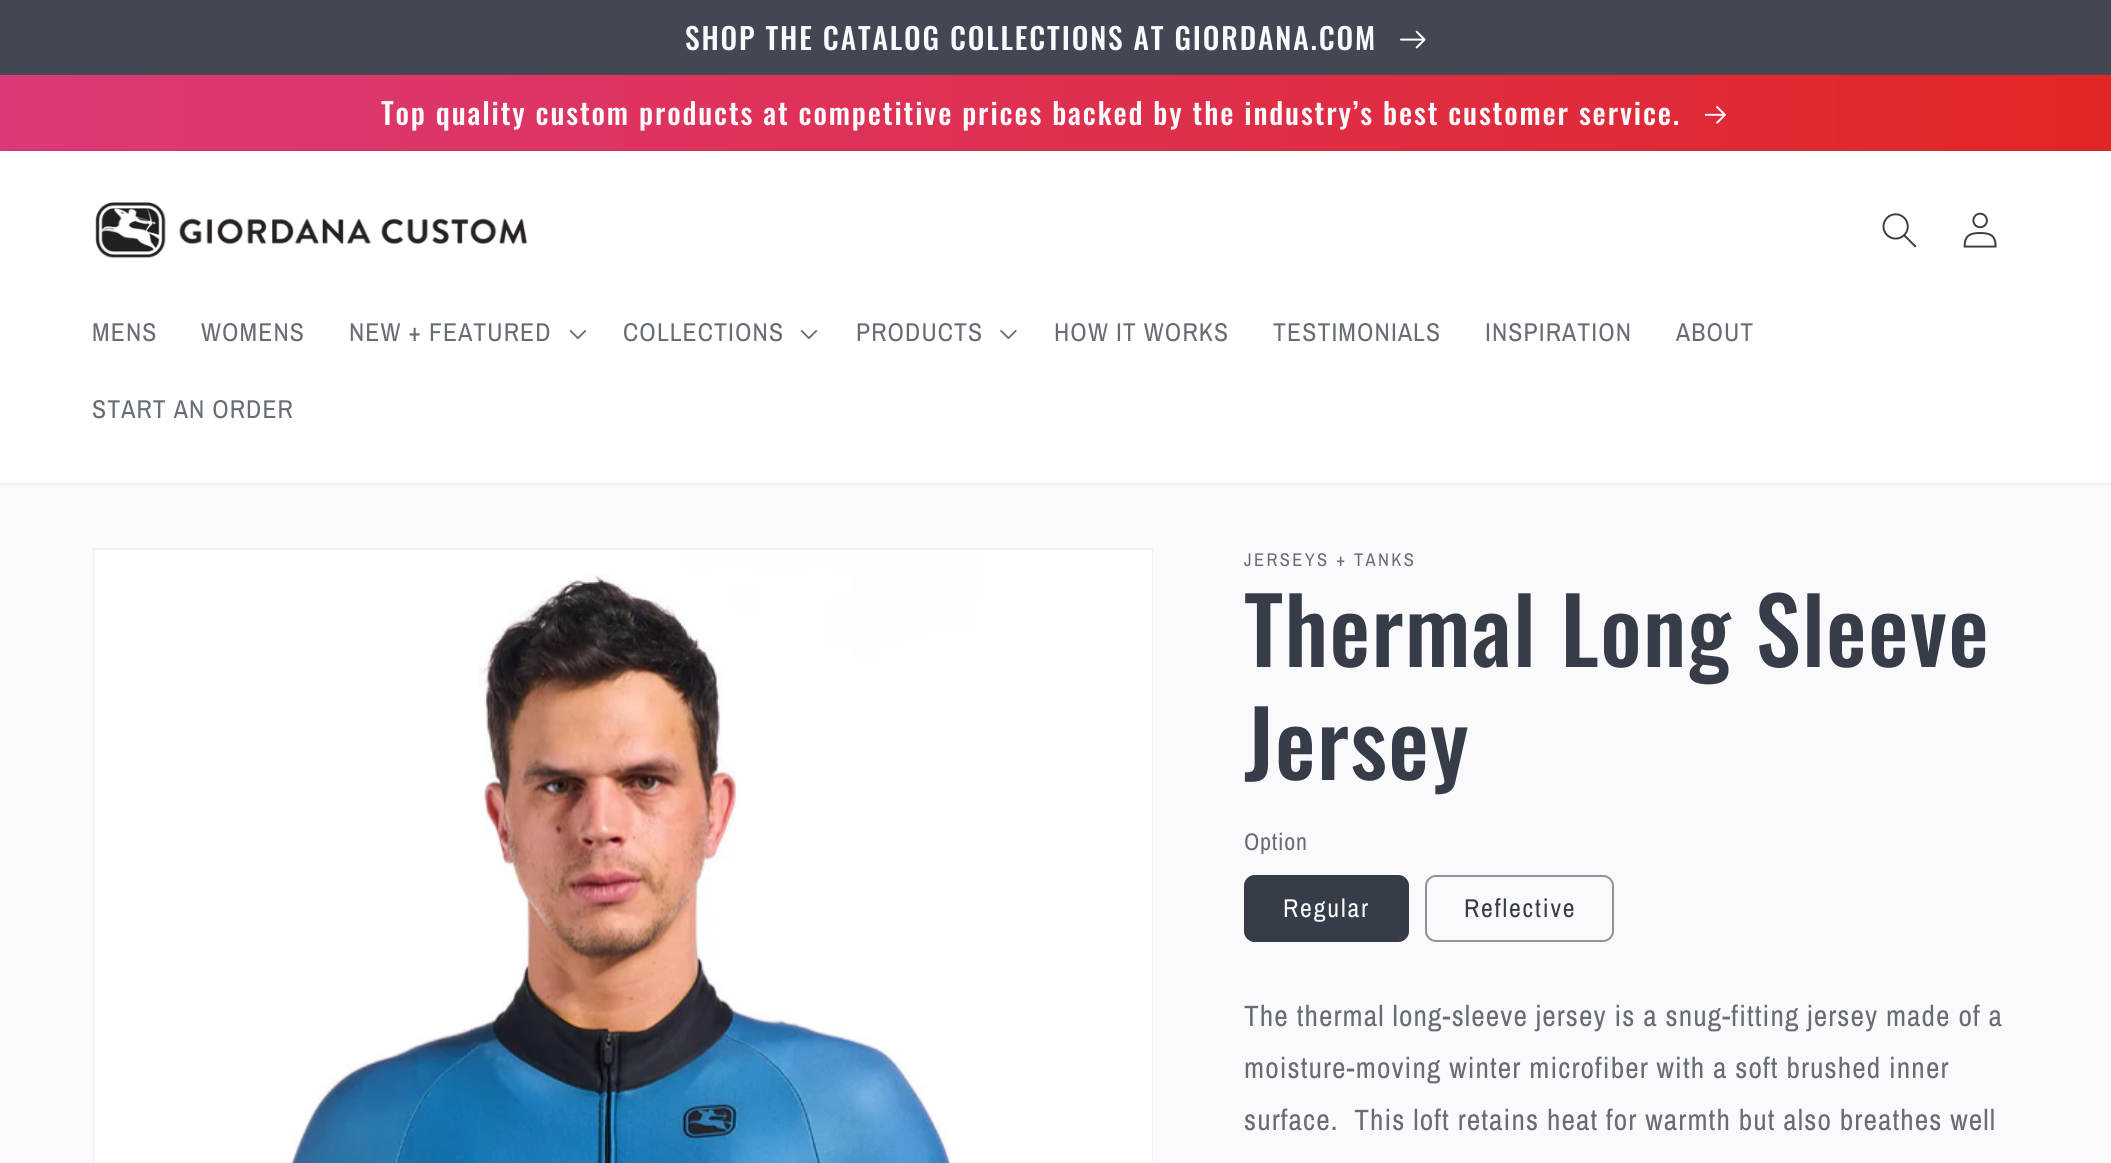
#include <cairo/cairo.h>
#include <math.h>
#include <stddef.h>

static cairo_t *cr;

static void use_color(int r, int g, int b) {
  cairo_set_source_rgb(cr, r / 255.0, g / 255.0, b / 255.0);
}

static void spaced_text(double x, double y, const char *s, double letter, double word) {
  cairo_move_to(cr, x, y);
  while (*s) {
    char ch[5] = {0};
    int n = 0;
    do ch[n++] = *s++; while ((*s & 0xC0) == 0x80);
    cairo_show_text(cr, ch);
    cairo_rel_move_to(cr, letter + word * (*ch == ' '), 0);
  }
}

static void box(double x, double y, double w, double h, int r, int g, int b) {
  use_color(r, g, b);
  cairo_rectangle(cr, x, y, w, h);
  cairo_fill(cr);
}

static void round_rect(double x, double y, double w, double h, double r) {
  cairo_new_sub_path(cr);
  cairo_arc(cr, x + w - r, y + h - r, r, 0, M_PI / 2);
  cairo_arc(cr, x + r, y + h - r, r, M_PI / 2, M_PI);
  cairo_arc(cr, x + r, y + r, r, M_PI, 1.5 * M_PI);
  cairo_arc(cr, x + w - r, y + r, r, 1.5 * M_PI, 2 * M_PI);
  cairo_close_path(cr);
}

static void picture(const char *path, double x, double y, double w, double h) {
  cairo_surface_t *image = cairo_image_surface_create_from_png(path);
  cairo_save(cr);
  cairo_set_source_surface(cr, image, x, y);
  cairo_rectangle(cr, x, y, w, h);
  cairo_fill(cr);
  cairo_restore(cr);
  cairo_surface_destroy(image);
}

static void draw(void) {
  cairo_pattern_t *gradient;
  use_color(250, 250, 252);
  cairo_paint(cr);
  box(0, 74, 2111, 1, 70, 75, 86);
  box(0, 0, 2111, 74, 66, 71, 83);
  picture("img_01.png", 1400, 30, 26, 19);
  gradient = cairo_pattern_create_linear(0, 582, 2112, 582);
  cairo_pattern_add_color_stop_rgba(gradient, 0, 0.863, 0.224, 0.471, 1);
  cairo_pattern_add_color_stop_rgba(gradient, 1, 0.886, 0.149, 0.149, 1);
  cairo_set_source(cr, gradient);
  cairo_pattern_destroy(gradient);
  cairo_rectangle(cr, 0, 75, 2111, 74);
  cairo_fill(cr);
  gradient = cairo_pattern_create_linear(0, 582, 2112, 582);
  cairo_pattern_add_color_stop_rgba(gradient, 0, 0.812, 0.224, 0.455, 1);
  cairo_pattern_add_color_stop_rgba(gradient, 1, 0.831, 0.157, 0.161, 1);
  cairo_set_source(cr, gradient);
  cairo_pattern_destroy(gradient);
  cairo_rectangle(cr, 0, 149, 2111, 2);
  cairo_fill(cr);
  picture("img_02.png", 1705, 106, 21, 18);
  box(0, 151, 2111, 332, 255, 255, 255);
  box(0, 483, 2111, 2, 239, 239, 240);
  picture("img_03.png", 95, 202, 433, 56);
  picture("img_04.png", 1882, 213, 35, 35);
  picture("img_05.png", 1963, 212, 34, 36);
  picture("img_06.png", 569, 330, 17, 9);
  picture("img_07.png", 800, 330, 18, 9);
  picture("img_08.png", 1000, 330, 17, 9);
  cairo_rectangle(cr, 94, 549, 1058, 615);
  use_color(240, 241, 243);
  cairo_stroke(cr);
  picture("img_09.png", 94, 550, 1058, 613);
  use_color(54, 60, 72);
  round_rect(1244, 875, 165, 67, 11);
  cairo_fill(cr);
  round_rect(1245, 876, 163, 65, 10);
  cairo_set_source_rgba(cr, 0.212, 0.235, 0.282, 0.55);
  cairo_stroke(cr);
  round_rect(1426, 876, 187, 65, 10);
  use_color(142, 146, 153);
  cairo_stroke(cr);
  cairo_select_font_face(cr, "Oswald Medium", CAIRO_FONT_SLANT_NORMAL, CAIRO_FONT_WEIGHT_NORMAL);
  cairo_set_font_size(cr, 29.55);
  use_color(250, 250, 252);
  spaced_text(685, 50, "SHOP THE CATALOG COLLECTIONS AT GIORDANA.COM", 1.85, 0);
  spaced_text(381, 125, "Top quality custom products at competitive prices backed by the industry’s best customer service.", 1.85, 0);
  cairo_select_font_face(cr, "Archivo Narrow", CAIRO_FONT_SLANT_NORMAL, CAIRO_FONT_WEIGHT_NORMAL);
  cairo_set_font_size(cr, 25.75);
  use_color(103, 108, 117);
  spaced_text(92, 341, "MENS", 1.1, 0);
  spaced_text(201, 341, "WOMENS", 1.1, 0);
  spaced_text(349, 341, "NEW + FEATURED", 1.1, 0);
  spaced_text(623, 341, "COLLECTIONS", 1.1, 0);
  spaced_text(856, 341, "PRODUCTS", 1.1, 0);
  spaced_text(1054, 341, "HOW IT WORKS", 1.1, 0);
  spaced_text(1273, 341, "TESTIMONIALS", 1.1, 0);
  spaced_text(1485, 341, "INSPIRATION", 1.1, 0);
  spaced_text(1676, 341, "ABOUT", 1.1, 0);
  spaced_text(92, 418, "START AN ORDER", 1.1, 0);
  cairo_set_font_size(cr, 18.4);
  spaced_text(1244, 566, "JERSEYS + TANKS", 2.4, 0);
  cairo_select_font_face(cr, "Oswald Medium", CAIRO_FONT_SLANT_NORMAL, CAIRO_FONT_WEIGHT_NORMAL);
  cairo_set_font_size(cr, 91);
  use_color(54, 60, 72);
  spaced_text(1244, 667, "Thermal Long Sleeve", 1.4, 0);
  spaced_text(1244, 780, "Jersey", 1.4, 0);
  cairo_select_font_face(cr, "Archivo Narrow", CAIRO_FONT_SLANT_NORMAL, CAIRO_FONT_WEIGHT_NORMAL);
  cairo_set_font_size(cr, 24);
  use_color(103, 108, 117);
  spaced_text(1244, 850, "Option", 0.75, 0);
  cairo_set_font_size(cr, 25.75);
  use_color(250, 250, 252);
  spaced_text(1283, 917, "Regular", 1.85, 0);
  use_color(54, 60, 72);
  spaced_text(1464, 917, "Reflective", 1.85, 0);
  cairo_set_font_size(cr, 29.4);
  use_color(103, 108, 117);
  spaced_text(1244, 1026, "The thermal long-sleeve jersey is a snug-fitting jersey made of a", 1.1, 0);
  spaced_text(1244, 1078, "moisture-moving winter microfiber with a soft brushed inner", 1.1, 0);
  spaced_text(1244, 1130, "surface.  This loft retains heat for warmth but also breathes well", 1.1, 0);
}

int main(void) {
  cairo_surface_t *surface = cairo_image_surface_create(CAIRO_FORMAT_RGB24, 2111, 1163);
  cr = cairo_create(surface);
  cairo_font_options_t *options = cairo_font_options_create();
  cairo_font_options_set_hint_metrics(options, CAIRO_HINT_METRICS_OFF);
  cairo_font_options_set_hint_style(options, CAIRO_HINT_STYLE_NONE);
  cairo_set_font_options(cr, options);
  cairo_set_miter_limit(cr, 4);
  draw();
  cairo_surface_write_to_png(surface, "out.png");
  cairo_font_options_destroy(options);
  cairo_destroy(cr);
  cairo_surface_destroy(surface);
  return 0;
}
